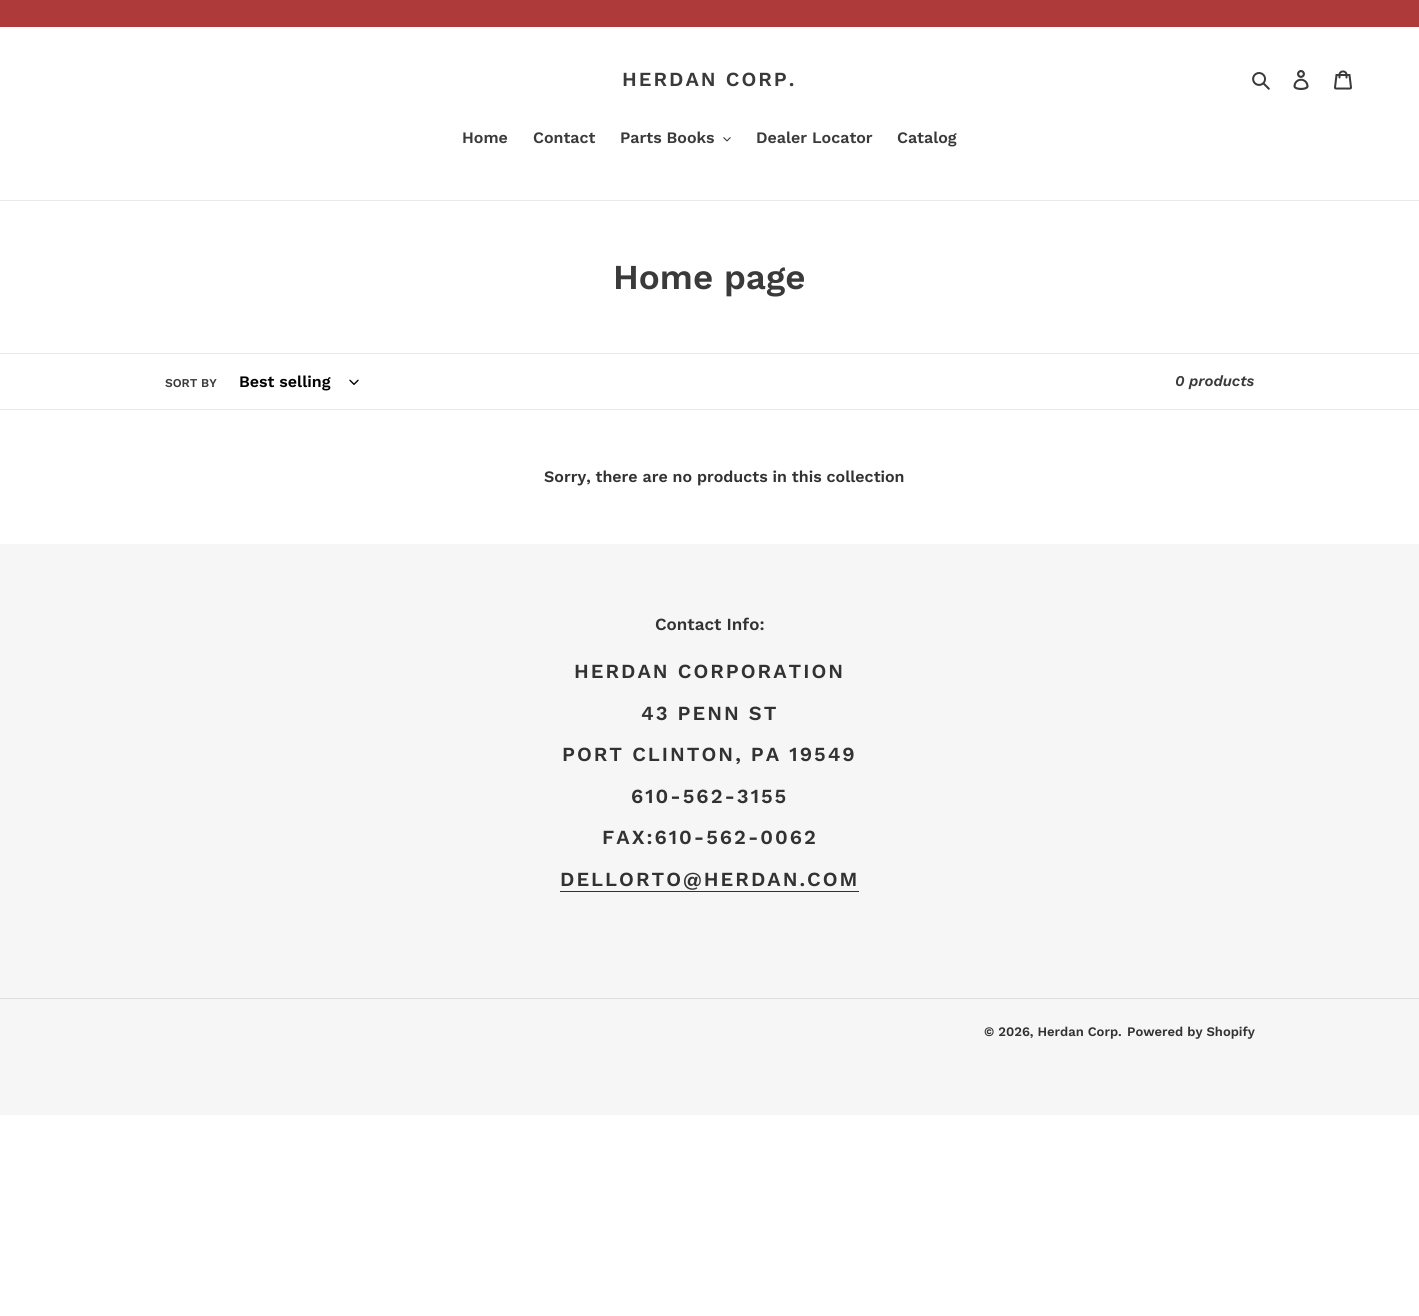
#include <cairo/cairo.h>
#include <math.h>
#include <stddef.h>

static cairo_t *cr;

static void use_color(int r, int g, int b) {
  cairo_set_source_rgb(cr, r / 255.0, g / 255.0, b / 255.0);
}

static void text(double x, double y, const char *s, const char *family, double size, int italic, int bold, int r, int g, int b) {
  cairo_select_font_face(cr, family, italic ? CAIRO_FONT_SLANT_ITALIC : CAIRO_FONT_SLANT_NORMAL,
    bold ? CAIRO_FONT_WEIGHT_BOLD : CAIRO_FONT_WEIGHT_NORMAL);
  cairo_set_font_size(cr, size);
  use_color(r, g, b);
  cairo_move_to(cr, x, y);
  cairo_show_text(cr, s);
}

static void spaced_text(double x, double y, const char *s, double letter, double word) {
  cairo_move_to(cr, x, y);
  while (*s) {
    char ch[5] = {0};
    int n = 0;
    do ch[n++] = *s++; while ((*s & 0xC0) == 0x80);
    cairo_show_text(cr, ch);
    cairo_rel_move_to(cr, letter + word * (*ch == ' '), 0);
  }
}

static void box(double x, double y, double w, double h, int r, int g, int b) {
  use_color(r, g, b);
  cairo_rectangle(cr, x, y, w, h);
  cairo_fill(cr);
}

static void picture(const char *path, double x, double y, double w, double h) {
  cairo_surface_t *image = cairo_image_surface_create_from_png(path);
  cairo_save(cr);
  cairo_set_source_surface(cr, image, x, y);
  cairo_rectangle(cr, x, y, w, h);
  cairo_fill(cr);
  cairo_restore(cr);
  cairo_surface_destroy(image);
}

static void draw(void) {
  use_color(255, 255, 255);
  cairo_paint(cr);
  box(0, 0, 1419, 27, 175, 58, 58);
  picture("img_01.png", 1252, 72, 18, 18);
  picture("img_02.png", 1293, 70, 16, 20);
  picture("img_03.png", 1334, 70, 18, 20);
  box(0, 200, 1419, 1, 232, 233, 235);
  picture("img_04.png", 723, 137, 8, 5);
  box(0, 353, 1419, 1, 232, 233, 235);
  box(0, 409, 1419, 1, 232, 233, 235);
  picture("img_05.png", 349, 379, 10, 6);
  box(0, 544, 1419, 571, 246, 246, 246);
  box(560, 891, 299, 1, 51, 50, 50);
  box(0, 998, 1419, 1, 221, 221, 221);
  cairo_select_font_face(cr, "Work Sans SemiBold", CAIRO_FONT_SLANT_NORMAL, CAIRO_FONT_WEIGHT_NORMAL);
  cairo_set_font_size(cr, 20);
  use_color(58, 58, 58);
  spaced_text(622, 86, "HERDAN CORP.", 2, 0);
  text(462, 143, "Home", "Work Sans SemiBold", 16, 0, 0, 58, 58, 58);
  text(533, 143, "Contact", "Work Sans SemiBold", 16, 0, 0, 58, 58, 58);
  text(620, 143, "Parts Books", "Work Sans SemiBold", 16, 0, 0, 58, 58, 58);
  text(756, 143, "Dealer Locator", "Work Sans SemiBold", 16, 0, 0, 58, 58, 58);
  text(897, 143, "Catalog", "Work Sans SemiBold", 16, 0, 0, 58, 58, 58);
  text(613, 289, "Home page", "Work Sans SemiBold", 35, 0, 0, 58, 58, 58);
  text(165, 387, "SORT BY", "Work Sans SemiBold", 12, 0, 0, 58, 58, 58);
  text(239, 387, "Best selling", "Work Sans SemiBold", 16, 0, 0, 0, 0, 0);
  text(1175, 386, "0 products", "Work Sans SemiBold", 15, 1, 0, 58, 58, 58);
  text(544, 482, "Sorry, there are no products in this collection", "Work Sans SemiBold", 16, 0, 0, 51, 50, 50);
  text(655, 630, "Contact Info:", "Work Sans SemiBold", 17, 0, 0, 51, 50, 50);
  cairo_set_font_size(cr, 20);
  spaced_text(574, 678, "HERDAN CORPORATION", 2, 0);
  spaced_text(641, 720, "43 PENN ST", 2, 0);
  spaced_text(562, 761, "PORT CLINTON, PA 19549", 2, 0);
  spaced_text(631, 803, "610-562-3155", 2, 0);
  spaced_text(602, 844, "FAX:610-562-0062", 2, 0);
  spaced_text(560, 886, "DELLORTO@HERDAN.COM", 2, 0);
  text(984, 1036, "© 2026, Herdan Corp.", "Work Sans SemiBold", 13, 0, 0, 51, 50, 50);
  text(1127, 1036, "Powered by Shopify", "Work Sans SemiBold", 13, 0, 0, 51, 50, 50);
}

int main(void) {
  cairo_surface_t *surface = cairo_image_surface_create(CAIRO_FORMAT_RGB24, 1419, 1316);
  cr = cairo_create(surface);
  cairo_font_options_t *options = cairo_font_options_create();
  cairo_font_options_set_hint_metrics(options, CAIRO_HINT_METRICS_OFF);
  cairo_font_options_set_hint_style(options, CAIRO_HINT_STYLE_NONE);
  cairo_set_font_options(cr, options);
  cairo_set_miter_limit(cr, 4);
  draw();
  cairo_surface_write_to_png(surface, "out.png");
  cairo_font_options_destroy(options);
  cairo_destroy(cr);
  cairo_surface_destroy(surface);
  return 0;
}
